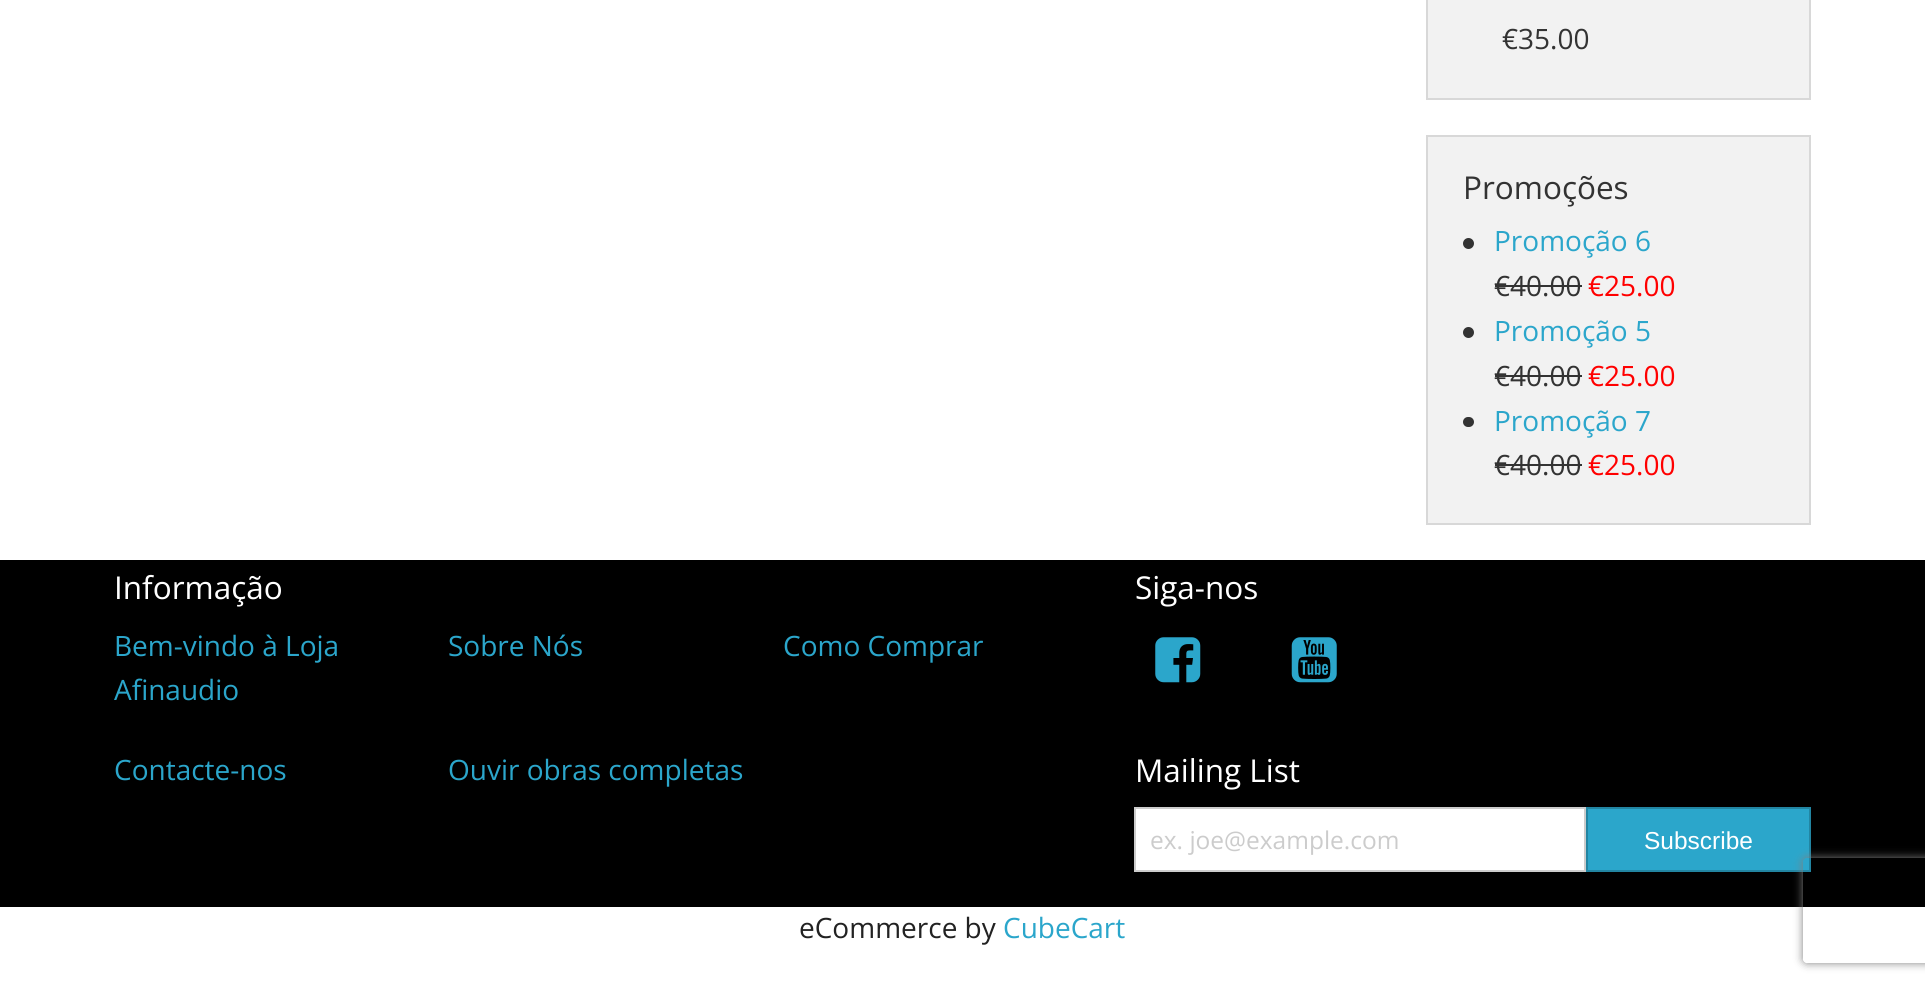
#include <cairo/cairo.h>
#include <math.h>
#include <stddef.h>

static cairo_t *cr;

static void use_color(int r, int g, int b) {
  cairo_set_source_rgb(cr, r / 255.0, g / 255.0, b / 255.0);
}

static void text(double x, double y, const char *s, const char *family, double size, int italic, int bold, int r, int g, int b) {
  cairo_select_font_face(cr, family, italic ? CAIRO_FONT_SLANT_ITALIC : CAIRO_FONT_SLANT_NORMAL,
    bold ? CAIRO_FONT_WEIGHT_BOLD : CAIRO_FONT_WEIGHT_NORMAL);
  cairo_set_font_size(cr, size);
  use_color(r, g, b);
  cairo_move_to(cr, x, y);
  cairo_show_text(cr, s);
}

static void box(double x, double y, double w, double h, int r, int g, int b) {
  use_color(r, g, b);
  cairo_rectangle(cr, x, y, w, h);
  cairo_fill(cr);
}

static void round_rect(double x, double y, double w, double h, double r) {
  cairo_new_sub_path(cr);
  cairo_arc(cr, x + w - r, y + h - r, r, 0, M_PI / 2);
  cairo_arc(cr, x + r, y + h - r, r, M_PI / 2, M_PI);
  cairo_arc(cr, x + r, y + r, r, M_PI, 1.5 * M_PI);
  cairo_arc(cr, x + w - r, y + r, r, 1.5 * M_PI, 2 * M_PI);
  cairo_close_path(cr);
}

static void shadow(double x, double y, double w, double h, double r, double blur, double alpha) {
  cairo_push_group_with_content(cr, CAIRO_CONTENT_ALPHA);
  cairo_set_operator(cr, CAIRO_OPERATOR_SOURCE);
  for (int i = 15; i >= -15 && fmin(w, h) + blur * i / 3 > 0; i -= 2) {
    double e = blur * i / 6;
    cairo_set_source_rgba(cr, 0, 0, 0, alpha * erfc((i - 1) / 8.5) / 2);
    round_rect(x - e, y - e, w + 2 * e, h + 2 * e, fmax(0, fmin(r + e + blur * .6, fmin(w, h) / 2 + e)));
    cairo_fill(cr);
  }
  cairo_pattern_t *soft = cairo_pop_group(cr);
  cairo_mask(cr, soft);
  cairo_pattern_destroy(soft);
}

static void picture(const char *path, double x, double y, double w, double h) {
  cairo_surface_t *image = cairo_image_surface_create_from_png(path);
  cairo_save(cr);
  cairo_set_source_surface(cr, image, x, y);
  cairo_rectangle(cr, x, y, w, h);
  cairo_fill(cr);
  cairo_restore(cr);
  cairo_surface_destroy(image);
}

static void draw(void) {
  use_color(255, 255, 255);
  cairo_paint(cr);
  use_color(242, 242, 242);
  cairo_rectangle(cr, 1427, -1, 383, 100);
  cairo_fill_preserve(cr);
  use_color(216, 216, 216);
  cairo_stroke(cr);
  use_color(242, 242, 242);
  cairo_rectangle(cr, 1427, 136, 383, 388);
  cairo_fill_preserve(cr);
  use_color(216, 216, 216);
  cairo_stroke(cr);
  use_color(51, 51, 51);
  cairo_arc(cr, 1468.5, 243.5, 5.5, 0, 2 * M_PI);
  cairo_fill(cr);
  box(1495, 285, 87, 2, 51, 51, 51);
  cairo_arc(cr, 1468.5, 332.5, 5.5, 0, 2 * M_PI);
  cairo_fill(cr);
  box(1495, 375, 87, 2, 51, 51, 51);
  round_rect(1463, 417, 11, 10, 5);
  cairo_fill(cr);
  box(1495, 464, 87, 2, 51, 51, 51);
  box(0, 560, 1925, 347, 0, 0, 0);
  picture("img_01.png", 1155, 637, 46, 46);
  picture("img_02.png", 1291, 637, 46, 46);
  use_color(255, 255, 255);
  cairo_rectangle(cr, 1135, 808, 450, 63);
  cairo_fill_preserve(cr);
  use_color(204, 204, 204);
  cairo_stroke(cr);
  use_color(43, 166, 203);
  cairo_rectangle(cr, 1587, 808, 223, 63);
  cairo_fill_preserve(cr);
  use_color(34, 133, 162);
  cairo_stroke(cr);
  cairo_save(cr);
  cairo_set_fill_rule(cr, CAIRO_FILL_RULE_EVEN_ODD);
  cairo_new_path(cr);
  cairo_move_to(cr, 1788, 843);
  cairo_line_to(cr, 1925, 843);
  cairo_line_to(cr, 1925, 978);
  cairo_line_to(cr, 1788, 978);
  cairo_close_path(cr);
  cairo_move_to(cr, 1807, 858);
  cairo_line_to(cr, 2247, 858);
  cairo_curve_to(cr, 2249, 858, 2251, 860, 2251, 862);
  cairo_line_to(cr, 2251, 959);
  cairo_curve_to(cr, 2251, 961, 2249, 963, 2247, 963);
  cairo_line_to(cr, 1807, 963);
  cairo_curve_to(cr, 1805, 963, 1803, 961, 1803, 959);
  cairo_line_to(cr, 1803, 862);
  cairo_curve_to(cr, 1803, 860, 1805, 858, 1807, 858);
  cairo_close_path(cr);
  cairo_clip(cr);
  use_color(128, 128, 128);
  shadow(1803, 858, 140, 105, 4, 4.5, 1);
  cairo_restore(cr);
  text(1502, 49, "€35.00", "Open Sans", 28, 0, 0, 51, 51, 51);
  text(1463, 199, "Promoções", "Open Sans", 31.5, 0, 0, 51, 51, 51);
  text(1494, 251, "Promoção 6", "Open Sans", 28, 0, 0, 43, 166, 203);
  text(1494, 296, "€40.00", "Open Sans", 28, 0, 0, 51, 51, 51);
  text(1588, 296, "€25.00", "Open Sans", 28, 0, 0, 255, 0, 0);
  text(1494, 341, "Promoção 5", "Open Sans", 28, 0, 0, 43, 166, 203);
  text(1494, 386, "€40.00", "Open Sans", 28, 0, 0, 51, 51, 51);
  text(1588, 386, "€25.00", "Open Sans", 28, 0, 0, 255, 0, 0);
  text(1494, 431, "Promoção 7", "Open Sans", 28, 0, 0, 43, 166, 203);
  text(1494, 475, "€40.00", "Open Sans", 28, 0, 0, 51, 51, 51);
  text(1588, 475, "€25.00", "Open Sans", 28, 0, 0, 255, 0, 0);
  text(114, 599, "Informação", "Open Sans", 31.5, 0, 0, 255, 255, 255);
  text(114, 656, "Bem-vindo à Loja", "Open Sans", 28, 0, 0, 43, 166, 203);
  text(114, 700, "Afinaudio", "Open Sans", 28, 0, 0, 43, 166, 203);
  text(448, 656, "Sobre Nós", "Open Sans", 28, 0, 0, 43, 166, 203);
  text(783, 656, "Como Comprar", "Open Sans", 28, 0, 0, 43, 166, 203);
  text(114, 780, "Contacte-nos", "Open Sans", 28, 0, 0, 43, 166, 203);
  text(448, 780, "Ouvir obras completas", "Open Sans", 28, 0, 0, 43, 166, 203);
  text(1135, 599, "Siga-nos", "Open Sans", 31.5, 0, 0, 255, 255, 255);
  text(1135, 782, "Mailing List", "Open Sans", 31.5, 0, 0, 255, 255, 255);
  text(1150, 849, "ex. joe@example.com", "Open Sans", 24.5, 0, 0, 204, 204, 204);
  text(1644, 849, "Subscribe", "Liberation Sans", 24.5, 0, 0, 255, 255, 255);
  text(799, 938, "eCommerce by", "Open Sans", 28, 0, 0, 34, 34, 34);
  text(1003, 938, "CubeCart", "Open Sans", 28, 0, 0, 43, 166, 203);
}

int main(void) {
  cairo_surface_t *surface = cairo_image_surface_create(CAIRO_FORMAT_RGB24, 1925, 987);
  cr = cairo_create(surface);
  cairo_font_options_t *options = cairo_font_options_create();
  cairo_font_options_set_hint_metrics(options, CAIRO_HINT_METRICS_OFF);
  cairo_font_options_set_hint_style(options, CAIRO_HINT_STYLE_NONE);
  cairo_set_font_options(cr, options);
  cairo_set_miter_limit(cr, 4);
  draw();
  cairo_surface_write_to_png(surface, "out.png");
  cairo_font_options_destroy(options);
  cairo_destroy(cr);
  cairo_surface_destroy(surface);
  return 0;
}
